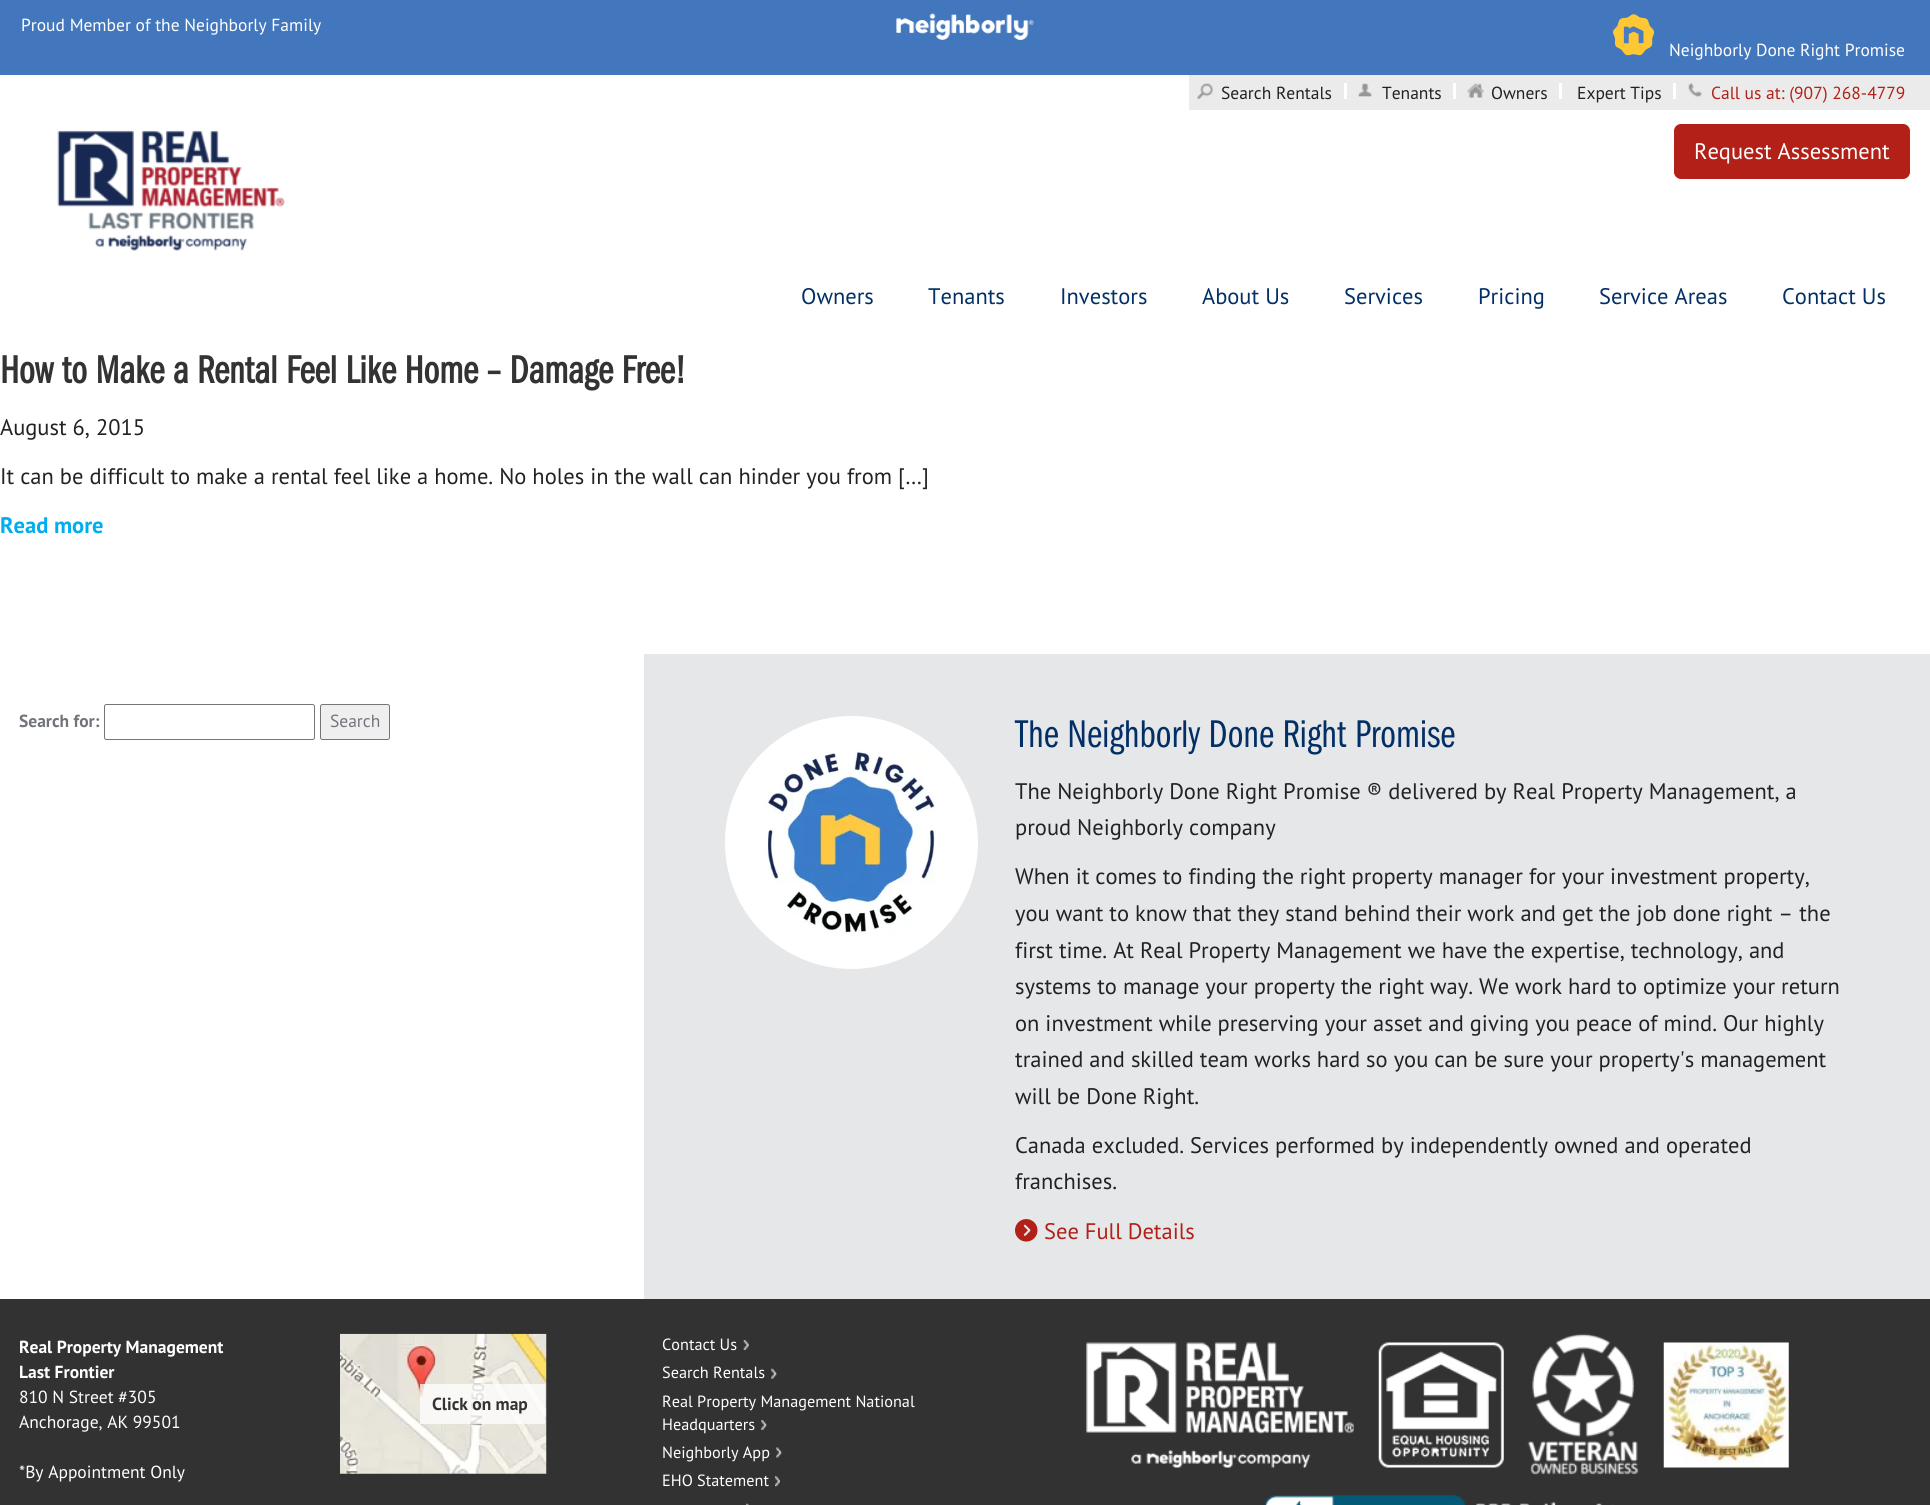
#include <cairo/cairo.h>
#include <math.h>
#include <stddef.h>

static cairo_t *cr;

static void use_color(int r, int g, int b) {
  cairo_set_source_rgb(cr, r / 255.0, g / 255.0, b / 255.0);
}

static void text(double x, double y, const char *s, const char *family, double size, int italic, int bold, int r, int g, int b) {
  cairo_select_font_face(cr, family, italic ? CAIRO_FONT_SLANT_ITALIC : CAIRO_FONT_SLANT_NORMAL,
    bold ? CAIRO_FONT_WEIGHT_BOLD : CAIRO_FONT_WEIGHT_NORMAL);
  cairo_set_font_size(cr, size);
  use_color(r, g, b);
  cairo_move_to(cr, x, y);
  cairo_show_text(cr, s);
}

static void box(double x, double y, double w, double h, int r, int g, int b) {
  use_color(r, g, b);
  cairo_rectangle(cr, x, y, w, h);
  cairo_fill(cr);
}

static void round_rect(double x, double y, double w, double h, double r) {
  cairo_new_sub_path(cr);
  cairo_arc(cr, x + w - r, y + h - r, r, 0, M_PI / 2);
  cairo_arc(cr, x + r, y + h - r, r, M_PI / 2, M_PI);
  cairo_arc(cr, x + r, y + r, r, M_PI, 1.5 * M_PI);
  cairo_arc(cr, x + w - r, y + r, r, 1.5 * M_PI, 2 * M_PI);
  cairo_close_path(cr);
}

static void picture(const char *path, double x, double y, double w, double h) {
  cairo_surface_t *image = cairo_image_surface_create_from_png(path);
  cairo_save(cr);
  cairo_set_source_surface(cr, image, x, y);
  cairo_rectangle(cr, x, y, w, h);
  cairo_fill(cr);
  cairo_restore(cr);
  cairo_surface_destroy(image);
}

static void draw(void) {
  use_color(50, 50, 50);
  cairo_paint(cr);
  box(0, 0, 1930, 75, 67, 119, 189);
  picture("img_01.png", 896, 13, 138, 27);
  picture("img_02.png", 1613, 14, 42, 42);
  box(0, 75, 1930, 1224, 255, 255, 255);
  box(1189, 75, 741, 35, 235, 235, 236);
  picture("img_03.png", 1197, 83, 16, 16);
  box(1344, 83, 3, 16, 255, 255, 255);
  picture("img_04.png", 1358, 83, 14, 14);
  box(1453, 83, 3, 16, 255, 255, 255);
  picture("img_05.png", 1467, 83, 17, 15);
  box(1559, 83, 3, 16, 255, 255, 255);
  box(1673, 83, 3, 16, 255, 255, 255);
  picture("img_06.png", 1688, 83, 14, 14);
  picture("img_07.png", 57, 130, 228, 121);
  use_color(179, 32, 23);
  round_rect(1673.5, 123.5, 237, 56, 7.5);
  cairo_fill_preserve(cr);
  use_color(255, 255, 255);
  cairo_set_line_width(cr, 1);
  cairo_stroke(cr);
  round_rect(104.5, 704.5, 210, 35, 2);
  use_color(118, 118, 118);
  cairo_stroke(cr);
  use_color(239, 239, 239);
  round_rect(320.5, 704.5, 69, 35, 2);
  cairo_fill_preserve(cr);
  use_color(118, 118, 118);
  cairo_stroke(cr);
  box(644, 654, 1286, 645, 230, 231, 233);
  use_color(255, 255, 255);
  cairo_arc(cr, 851.5, 842.5, 126.5, 0, 2 * M_PI);
  cairo_fill(cr);
  picture("img_08.png", 738, 730, 198, 219);
  picture("img_09.png", 1015, 1219, 23, 23);
  picture("img_10.png", 340, 1333, 207, 141);
  cairo_set_source_rgba(cr, 1, 1, 1, 0.75);
  cairo_rectangle(cr, 420, 1384, 125, 40);
  cairo_fill(cr);
  picture("img_11.png", 743, 1340, 6, 10);
  picture("img_12.png", 771, 1368, 6, 11);
  picture("img_13.png", 761, 1420, 6, 10);
  picture("img_14.png", 776, 1447, 6, 11);
  picture("img_15.png", 775, 1476, 5, 11);
  picture("img_16.png", 746, 1503, 3, 2);
  picture("img_17.png", 1086, 1342, 268, 126);
  picture("img_18.png", 1378, 1342, 126, 126);
  picture("img_19.png", 1527, 1333, 112, 142);
  picture("img_20.png", 1663, 1342, 126, 126);
  picture("img_21.png", 1264, 1495, 350, 10);
  text(21, 31, "Proud Member of the Neighborly Family", "PT Sans", 17.5, 0, 0, 255, 255, 255);
  text(1669, 56, "Neighborly Done Right Promise", "PT Sans", 17.5, 0, 0, 255, 255, 255);
  text(1221, 99, "Search Rentals", "PT Sans", 17.5, 0, 0, 34, 34, 34);
  text(1382, 99, "Tenants", "PT Sans", 17.5, 0, 0, 34, 34, 34);
  text(1491, 99, "Owners", "PT Sans", 17.5, 0, 0, 34, 34, 34);
  text(1577, 99, "Expert Tips", "PT Sans", 17.5, 0, 0, 34, 34, 34);
  text(1711, 99, "Call us at: (907) 268-4779", "PT Sans", 17.5, 0, 0, 179, 32, 23);
  text(1694, 159, "Request Assessment", "PT Sans", 22.5, 0, 0, 255, 255, 255);
  text(801, 304, "Owners", "PT Sans", 22.5, 0, 0, 2, 47, 101);
  text(928, 304, "Tenants", "PT Sans", 22.5, 0, 0, 2, 47, 101);
  text(1060, 304, "Investors", "PT Sans", 22.5, 0, 0, 2, 47, 101);
  text(1202, 304, "About Us", "PT Sans", 22.5, 0, 0, 2, 47, 101);
  text(1344, 304, "Services", "PT Sans", 22.5, 0, 0, 2, 47, 101);
  text(1478, 304, "Pricing", "PT Sans", 22.5, 0, 0, 2, 47, 101);
  text(1599, 304, "Service Areas", "PT Sans", 22.5, 0, 0, 2, 47, 101);
  text(1782, 304, "Contact Us", "PT Sans", 22.5, 0, 0, 2, 47, 101);
  text(0, 383, "How to Make a Rental Feel Like Home – Damage Free!", "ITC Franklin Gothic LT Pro", 40, 0, 1, 51, 51, 51);
  text(0, 435, "August 6, 2015", "PT Sans", 22.5, 0, 0, 34, 34, 34);
  text(0, 484, "It can be difficult to make a rental feel like a home. No holes in the wall can hinder you from […]", "PT Sans", 22.5, 0, 0, 34, 34, 34);
  text(0, 533, "Read more", "PT Sans", 22.5, 0, 1, 0, 174, 239);
  text(19, 727, "Search for:", "PT Sans", 17.5, 0, 1, 113, 116, 123);
  text(330, 727, "Search", "PT Sans", 17.5, 0, 0, 113, 116, 123);
  text(1015, 747, "The Neighborly Done Right Promise", "ITC Franklin Gothic LT Pro", 40, 0, 0, 2, 47, 101);
  text(1015, 799, "The Neighborly Done Right Promise ® delivered by Real Property Management, a", "PT Sans", 22.5, 0, 0, 34, 34, 34);
  text(1015, 835, "proud Neighborly company", "PT Sans", 22.5, 0, 0, 34, 34, 34);
  text(1015, 884, "When it comes to finding the right property manager for your investment property,", "PT Sans", 22.5, 0, 0, 34, 34, 34);
  text(1015, 921, "you want to know that they stand behind their work and get the job done right – the", "PT Sans", 22.5, 0, 0, 34, 34, 34);
  text(1015, 958, "first time. At Real Property Management we have the expertise, technology, and", "PT Sans", 22.5, 0, 0, 34, 34, 34);
  text(1015, 994, "systems to manage your property the right way. We work hard to optimize your return", "PT Sans", 22.5, 0, 0, 34, 34, 34);
  text(1015, 1031, "on investment while preserving your asset and giving you peace of mind. Our highly", "PT Sans", 22.5, 0, 0, 34, 34, 34);
  text(1015, 1067, "trained and skilled team works hard so you can be sure your property's management", "PT Sans", 22.5, 0, 0, 34, 34, 34);
  text(1015, 1104, "will be Done Right.", "PT Sans", 22.5, 0, 0, 34, 34, 34);
  text(1015, 1153, "Canada excluded. Services performed by independently owned and operated", "PT Sans", 22.5, 0, 0, 34, 34, 34);
  text(1015, 1189, "franchises.", "PT Sans", 22.5, 0, 0, 34, 34, 34);
  text(1044, 1239, "See Full Details", "PT Sans", 22.5, 0, 0, 179, 32, 23);
  text(19, 1353, "Real Property Management", "PT Sans", 17.5, 0, 1, 255, 255, 255);
  text(19, 1378, "Last Frontier", "PT Sans", 17.5, 0, 1, 255, 255, 255);
  text(19, 1403, "810 N Street #305", "PT Sans", 17.5, 0, 0, 255, 255, 255);
  text(19, 1428, "Anchorage, AK 99501", "PT Sans", 17.5, 0, 0, 255, 255, 255);
  text(19, 1478, "*By Appointment Only", "PT Sans", 17.5, 0, 0, 255, 255, 255);
  text(432, 1410, "Click on map", "PT Sans", 17.5, 0, 1, 51, 51, 51);
  text(662, 1350, "Contact Us", "PT Sans", 16.25, 0, 0, 255, 255, 255);
  text(662, 1378, "Search Rentals", "PT Sans", 16.25, 0, 0, 255, 255, 255);
  text(662, 1407, "Real Property Management National", "PT Sans", 16.25, 0, 0, 255, 255, 255);
  text(662, 1430, "Headquarters", "PT Sans", 16.25, 0, 0, 255, 255, 255);
  text(662, 1458, "Neighborly App", "PT Sans", 16.25, 0, 0, 255, 255, 255);
  text(662, 1486, "EHO Statement", "PT Sans", 16.25, 0, 0, 255, 255, 255);
}

int main(void) {
  cairo_surface_t *surface = cairo_image_surface_create(CAIRO_FORMAT_RGB24, 1930, 1505);
  cr = cairo_create(surface);
  cairo_font_options_t *options = cairo_font_options_create();
  cairo_font_options_set_hint_metrics(options, CAIRO_HINT_METRICS_OFF);
  cairo_font_options_set_hint_style(options, CAIRO_HINT_STYLE_NONE);
  cairo_set_font_options(cr, options);
  cairo_set_miter_limit(cr, 4);
  draw();
  cairo_surface_write_to_png(surface, "out.png");
  cairo_font_options_destroy(options);
  cairo_destroy(cr);
  cairo_surface_destroy(surface);
  return 0;
}
